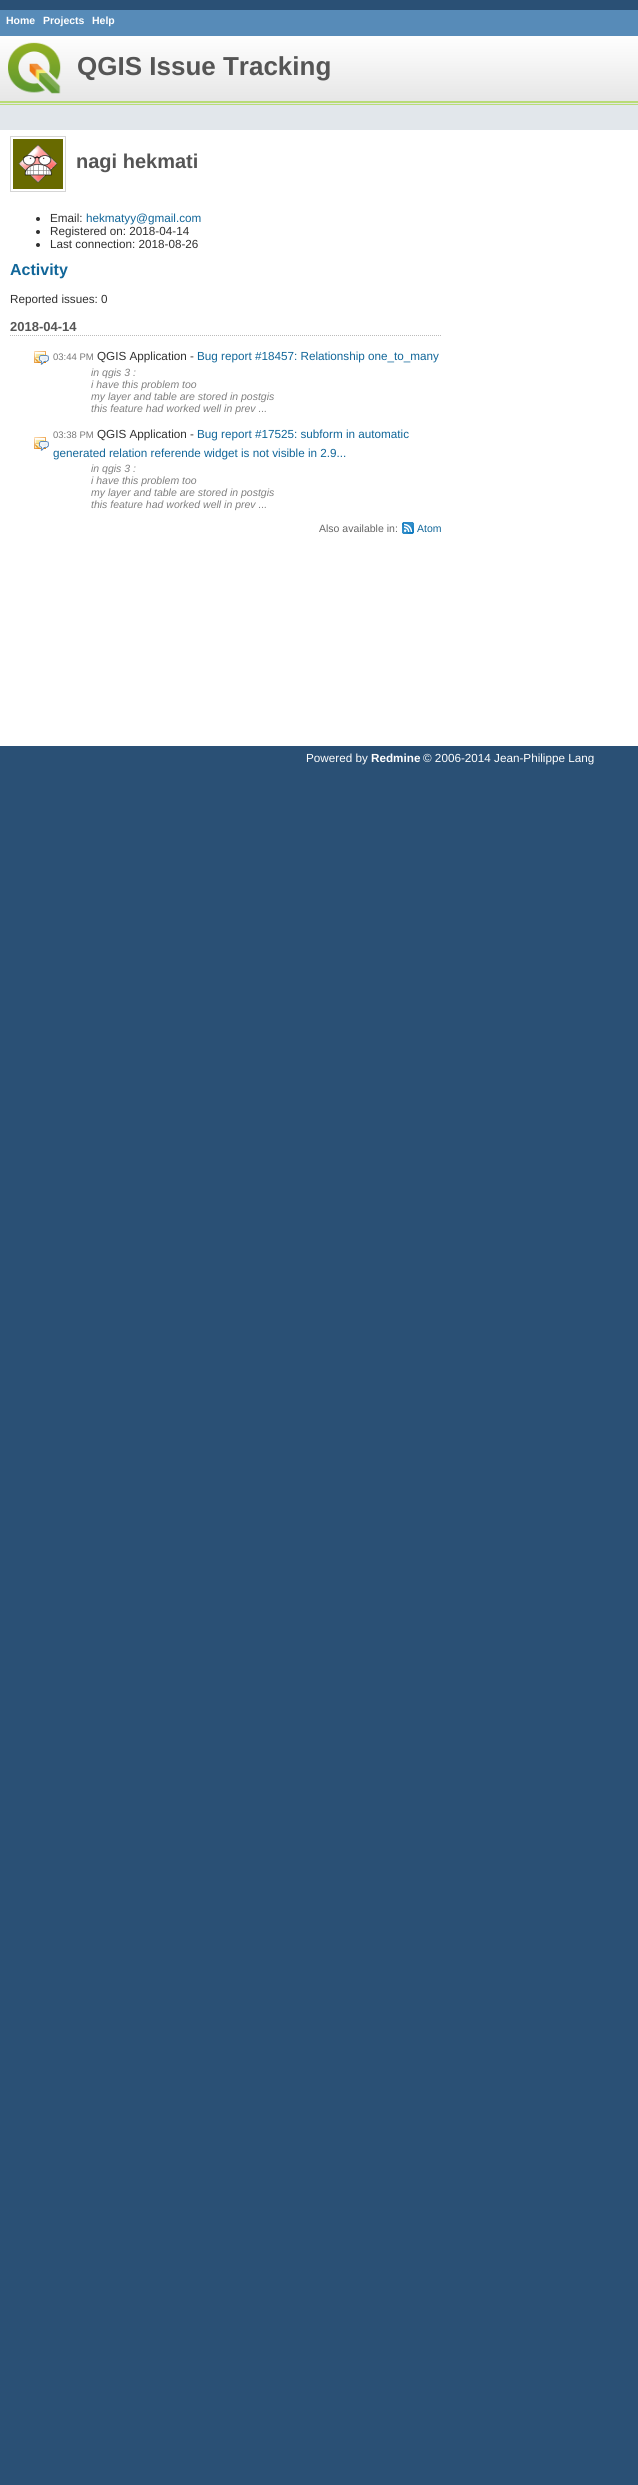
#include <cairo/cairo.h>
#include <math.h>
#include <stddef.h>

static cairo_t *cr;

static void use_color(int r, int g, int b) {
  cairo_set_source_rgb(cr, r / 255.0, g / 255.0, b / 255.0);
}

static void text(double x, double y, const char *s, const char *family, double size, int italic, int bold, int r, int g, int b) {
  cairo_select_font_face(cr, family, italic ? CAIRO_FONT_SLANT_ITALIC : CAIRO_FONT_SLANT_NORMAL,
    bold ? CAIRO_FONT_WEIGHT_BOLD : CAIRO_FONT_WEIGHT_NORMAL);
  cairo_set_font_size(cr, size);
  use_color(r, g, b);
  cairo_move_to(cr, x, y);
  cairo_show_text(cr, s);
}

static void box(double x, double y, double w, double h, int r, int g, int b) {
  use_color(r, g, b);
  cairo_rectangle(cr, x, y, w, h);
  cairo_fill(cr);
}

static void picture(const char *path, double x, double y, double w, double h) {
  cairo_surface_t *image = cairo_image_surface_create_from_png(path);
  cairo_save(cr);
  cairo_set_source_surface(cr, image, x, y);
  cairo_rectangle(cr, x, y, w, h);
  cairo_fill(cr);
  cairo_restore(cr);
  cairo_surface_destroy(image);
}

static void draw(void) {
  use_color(42, 80, 117);
  cairo_paint(cr);
  box(0, 10, 638, 26, 87, 139, 184);
  box(0, 105, 638, 25, 226, 231, 235);
  picture("img_01.png", 0, 36, 638, 69);
  picture("img_02.png", 8, 42, 53, 52);
  box(0, 130, 638, 616, 255, 255, 255);
  cairo_rectangle(cr, 10.5, 136.5, 55, 55);
  use_color(213, 213, 213);
  cairo_set_line_width(cr, 1);
  cairo_stroke(cr);
  picture("img_03.png", 13, 139, 50, 50);
  use_color(48, 48, 48);
  cairo_arc(cr, 38, 219, 2, 0, 2 * M_PI);
  cairo_fill(cr);
  cairo_arc(cr, 38, 232, 2, 0, 2 * M_PI);
  cairo_fill(cr);
  cairo_arc(cr, 38, 245, 2, 0, 2 * M_PI);
  cairo_fill(cr);
  cairo_new_path(cr);
  cairo_move_to(cr, 10, 335.5);
  cairo_line_to(cr, 441, 335.5);
  use_color(187, 187, 187);
  cairo_set_dash(cr, (double[]){1, 1}, 2, 0);
  cairo_stroke(cr);
  picture("img_04.png", 34, 351, 15, 14);
  picture("img_04.png", 34, 437, 15, 14);
  picture("img_05.png", 402, 522, 12, 12);
  text(6, 24, "Home", "Liberation Sans", 10.5, 0, 1, 255, 255, 255);
  text(43, 24, "Projects", "Liberation Sans", 10.5, 0, 1, 255, 255, 255);
  text(92, 24, "Help", "Liberation Sans", 10.5, 0, 1, 255, 255, 255);
  text(77, 75, "QGIS Issue Tracking", "Liberation Sans", 26, 0, 1, 85, 85, 85);
  text(76, 168, "nagi hekmati", "Liberation Sans", 20, 0, 1, 85, 85, 85);
  text(50, 222, "Email:", "Liberation Sans", 11.7, 0, 0, 48, 48, 48);
  text(86, 222, "hekmatyy@gmail.com", "Liberation Sans", 11.7, 0, 0, 17, 102, 153);
  text(50, 235, "Registered on: 2018-04-14", "Liberation Sans", 11.7, 0, 0, 48, 48, 48);
  text(50, 248, "Last connection: 2018-08-26", "Liberation Sans", 11.7, 0, 0, 48, 48, 48);
  text(10, 275, "Activity", "Liberation Sans", 16, 0, 1, 17, 102, 153);
  text(10, 303, "Reported issues: 0", "Liberation Sans", 11.7, 0, 0, 48, 48, 48);
  text(10, 331, "2018-04-14", "Liberation Sans", 13, 0, 1, 85, 85, 85);
  text(53, 360, "03:44 PM", "Liberation Sans", 9.5, 0, 0, 119, 119, 119);
  text(97, 360, "QGIS Application -", "Liberation Sans", 11.7, 0, 0, 48, 48, 48);
  text(197, 360, "Bug report #18457: Relationship one_to_many", "Liberation Sans", 11.7, 0, 0, 17, 102, 153);
  text(91, 376, "in qgis 3 :", "Liberation Sans", 10.5, 1, 0, 128, 128, 128);
  text(91, 388, "i have this problem too", "Liberation Sans", 10.5, 1, 0, 128, 128, 128);
  text(91, 400, "my layer and table are stored in postgis", "Liberation Sans", 10.5, 1, 0, 128, 128, 128);
  text(91, 412, "this feature had worked well in prev ...", "Liberation Sans", 10.5, 1, 0, 128, 128, 128);
  text(53, 438, "03:38 PM", "Liberation Sans", 9.5, 0, 0, 119, 119, 119);
  text(97, 438, "QGIS Application -", "Liberation Sans", 11.7, 0, 0, 48, 48, 48);
  text(197, 438, "Bug report #17525: subform in automatic", "Liberation Sans", 11.7, 0, 0, 17, 102, 153);
  text(53, 457, "generated relation referende widget is not visible in 2.9...", "Liberation Sans", 11.7, 0, 0, 17, 102, 153);
  text(91, 472, "in qgis 3 :", "Liberation Sans", 10.5, 1, 0, 128, 128, 128);
  text(91, 484, "i have this problem too", "Liberation Sans", 10.5, 1, 0, 128, 128, 128);
  text(91, 496, "my layer and table are stored in postgis", "Liberation Sans", 10.5, 1, 0, 128, 128, 128);
  text(91, 508, "this feature had worked well in prev ...", "Liberation Sans", 10.5, 1, 0, 128, 128, 128);
  text(319, 532, "Also available in:", "Liberation Sans", 10.5, 0, 0, 102, 102, 102);
  text(417, 532, "Atom", "Liberation Sans", 10.5, 0, 0, 17, 102, 153);
  text(306, 762, "Powered by", "Liberation Sans", 11.7, 0, 0, 255, 255, 255);
  text(371, 762, "Redmine", "Liberation Sans", 11.7, 0, 1, 255, 255, 255);
  text(423, 762, "© 2006-2014 Jean-Philippe Lang", "Liberation Sans", 11.7, 0, 0, 255, 255, 255);
}

int main(void) {
  cairo_surface_t *surface = cairo_image_surface_create(CAIRO_FORMAT_RGB24, 638, 2485);
  cr = cairo_create(surface);
  cairo_font_options_t *options = cairo_font_options_create();
  cairo_font_options_set_hint_metrics(options, CAIRO_HINT_METRICS_OFF);
  cairo_font_options_set_hint_style(options, CAIRO_HINT_STYLE_NONE);
  cairo_set_font_options(cr, options);
  cairo_set_miter_limit(cr, 4);
  draw();
  cairo_surface_write_to_png(surface, "out.png");
  cairo_font_options_destroy(options);
  cairo_destroy(cr);
  cairo_surface_destroy(surface);
  return 0;
}
